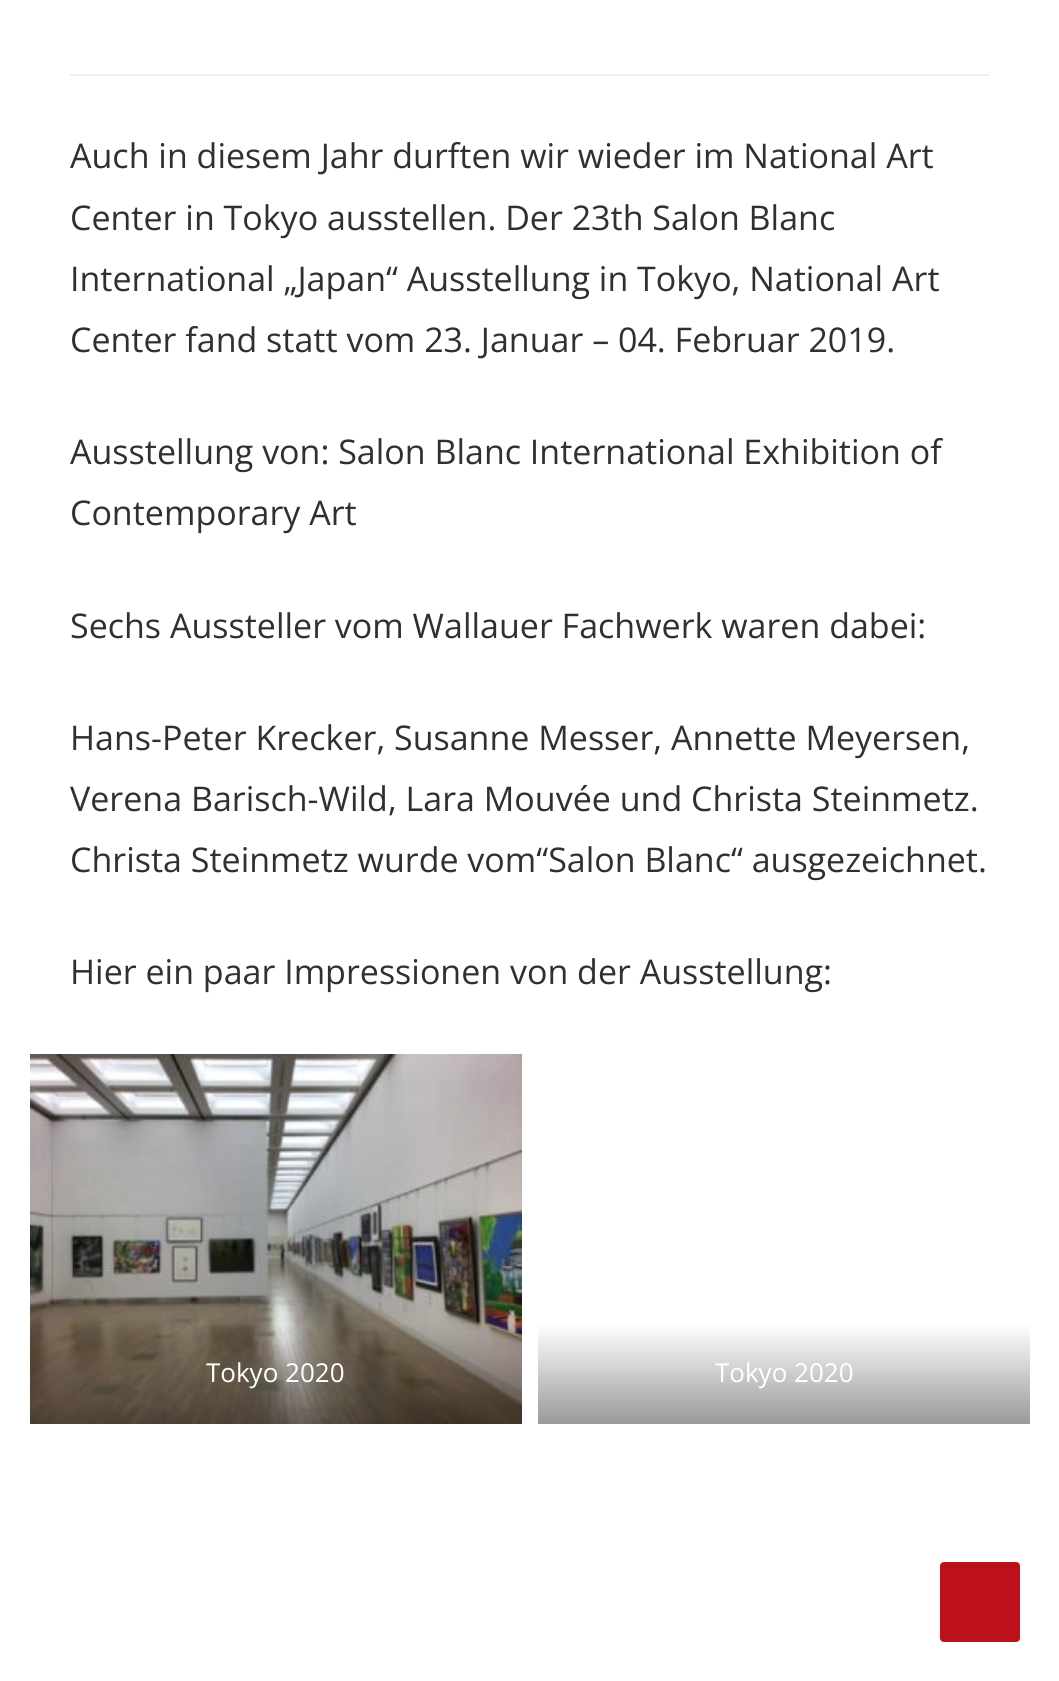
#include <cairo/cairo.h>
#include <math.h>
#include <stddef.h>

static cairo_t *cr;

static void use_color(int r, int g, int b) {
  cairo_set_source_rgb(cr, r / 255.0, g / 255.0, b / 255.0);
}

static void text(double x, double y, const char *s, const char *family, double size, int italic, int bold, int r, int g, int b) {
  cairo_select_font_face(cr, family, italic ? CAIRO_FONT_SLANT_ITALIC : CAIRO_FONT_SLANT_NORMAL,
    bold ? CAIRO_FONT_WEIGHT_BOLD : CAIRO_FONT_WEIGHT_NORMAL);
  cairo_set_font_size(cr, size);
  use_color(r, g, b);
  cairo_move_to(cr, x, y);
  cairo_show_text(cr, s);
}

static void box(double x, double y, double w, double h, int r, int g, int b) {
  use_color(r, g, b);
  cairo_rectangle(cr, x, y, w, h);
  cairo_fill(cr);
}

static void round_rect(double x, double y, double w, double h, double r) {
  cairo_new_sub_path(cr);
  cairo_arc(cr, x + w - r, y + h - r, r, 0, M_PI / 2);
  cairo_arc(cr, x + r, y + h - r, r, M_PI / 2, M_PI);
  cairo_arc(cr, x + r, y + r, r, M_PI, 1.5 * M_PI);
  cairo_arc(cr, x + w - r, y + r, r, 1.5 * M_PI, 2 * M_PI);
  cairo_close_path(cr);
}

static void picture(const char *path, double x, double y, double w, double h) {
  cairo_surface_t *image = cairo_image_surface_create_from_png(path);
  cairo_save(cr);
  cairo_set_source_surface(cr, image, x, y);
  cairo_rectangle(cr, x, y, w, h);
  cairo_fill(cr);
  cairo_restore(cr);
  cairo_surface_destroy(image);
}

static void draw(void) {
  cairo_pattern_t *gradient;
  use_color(255, 255, 255);
  cairo_paint(cr);
  box(70, 74, 920, 2, 241, 241, 241);
  picture("img_01.png", 30, 1054, 492, 370);
  gradient = cairo_pattern_create_linear(784, 1424, 784, 1324);
  cairo_pattern_add_color_stop_rgba(gradient, 0, 0.6, 0.6, 0.6, 1);
  cairo_pattern_add_color_stop_rgba(gradient, 1, 1, 1, 1, 1);
  cairo_set_source(cr, gradient);
  cairo_pattern_destroy(gradient);
  cairo_rectangle(cr, 538, 1326, 492, 98);
  cairo_fill(cr);
  use_color(188, 16, 26);
  round_rect(940, 1562, 80, 80, 4);
  cairo_fill(cr);
  text(70, 168, "Auch in diesem Jahr durften wir wieder im National Art", "Open Sans", 34, 0, 0, 48, 48, 48);
  text(70, 230, "Center in Tokyo ausstellen. Der 23th Salon Blanc", "Open Sans", 34, 0, 0, 48, 48, 48);
  text(70, 291, "International „Japan“ Ausstellung in Tokyo, National Art", "Open Sans", 34, 0, 0, 48, 48, 48);
  text(70, 352, "Center fand statt vom 23. Januar – 04. Februar 2019.", "Open Sans", 34, 0, 0, 48, 48, 48);
  text(70, 464, "Ausstellung von: Salon Blanc International Exhibition of", "Open Sans", 34, 0, 0, 48, 48, 48);
  text(70, 525, "Contemporary Art", "Open Sans", 34, 0, 0, 48, 48, 48);
  text(70, 638, "Sechs Aussteller vom Wallauer Fachwerk waren dabei:", "Open Sans", 34, 0, 0, 48, 48, 48);
  text(70, 750, "Hans-Peter Krecker, Susanne Messer, Annette Meyersen,", "Open Sans", 34, 0, 0, 48, 48, 48);
  text(70, 811, "Verena Barisch-Wild, Lara Mouvée und Christa Steinmetz.", "Open Sans", 34, 0, 0, 48, 48, 48);
  text(70, 872, "Christa Steinmetz wurde vom“Salon Blanc“ ausgezeichnet.", "Open Sans", 34, 0, 0, 48, 48, 48);
  text(70, 984, "Hier ein paar Impressionen von der Ausstellung:", "Open Sans", 34, 0, 0, 48, 48, 48);
  text(206, 1382, "Tokyo 2020", "Open Sans", 26, 0, 0, 255, 255, 255);
  text(715, 1382, "Tokyo 2020", "Open Sans", 26, 0, 0, 255, 255, 255);
}

int main(void) {
  cairo_surface_t *surface = cairo_image_surface_create(CAIRO_FORMAT_RGB24, 1059, 1681);
  cr = cairo_create(surface);
  cairo_font_options_t *options = cairo_font_options_create();
  cairo_font_options_set_hint_metrics(options, CAIRO_HINT_METRICS_OFF);
  cairo_font_options_set_hint_style(options, CAIRO_HINT_STYLE_NONE);
  cairo_set_font_options(cr, options);
  cairo_set_miter_limit(cr, 4);
  draw();
  cairo_surface_write_to_png(surface, "out.png");
  cairo_font_options_destroy(options);
  cairo_destroy(cr);
  cairo_surface_destroy(surface);
  return 0;
}
